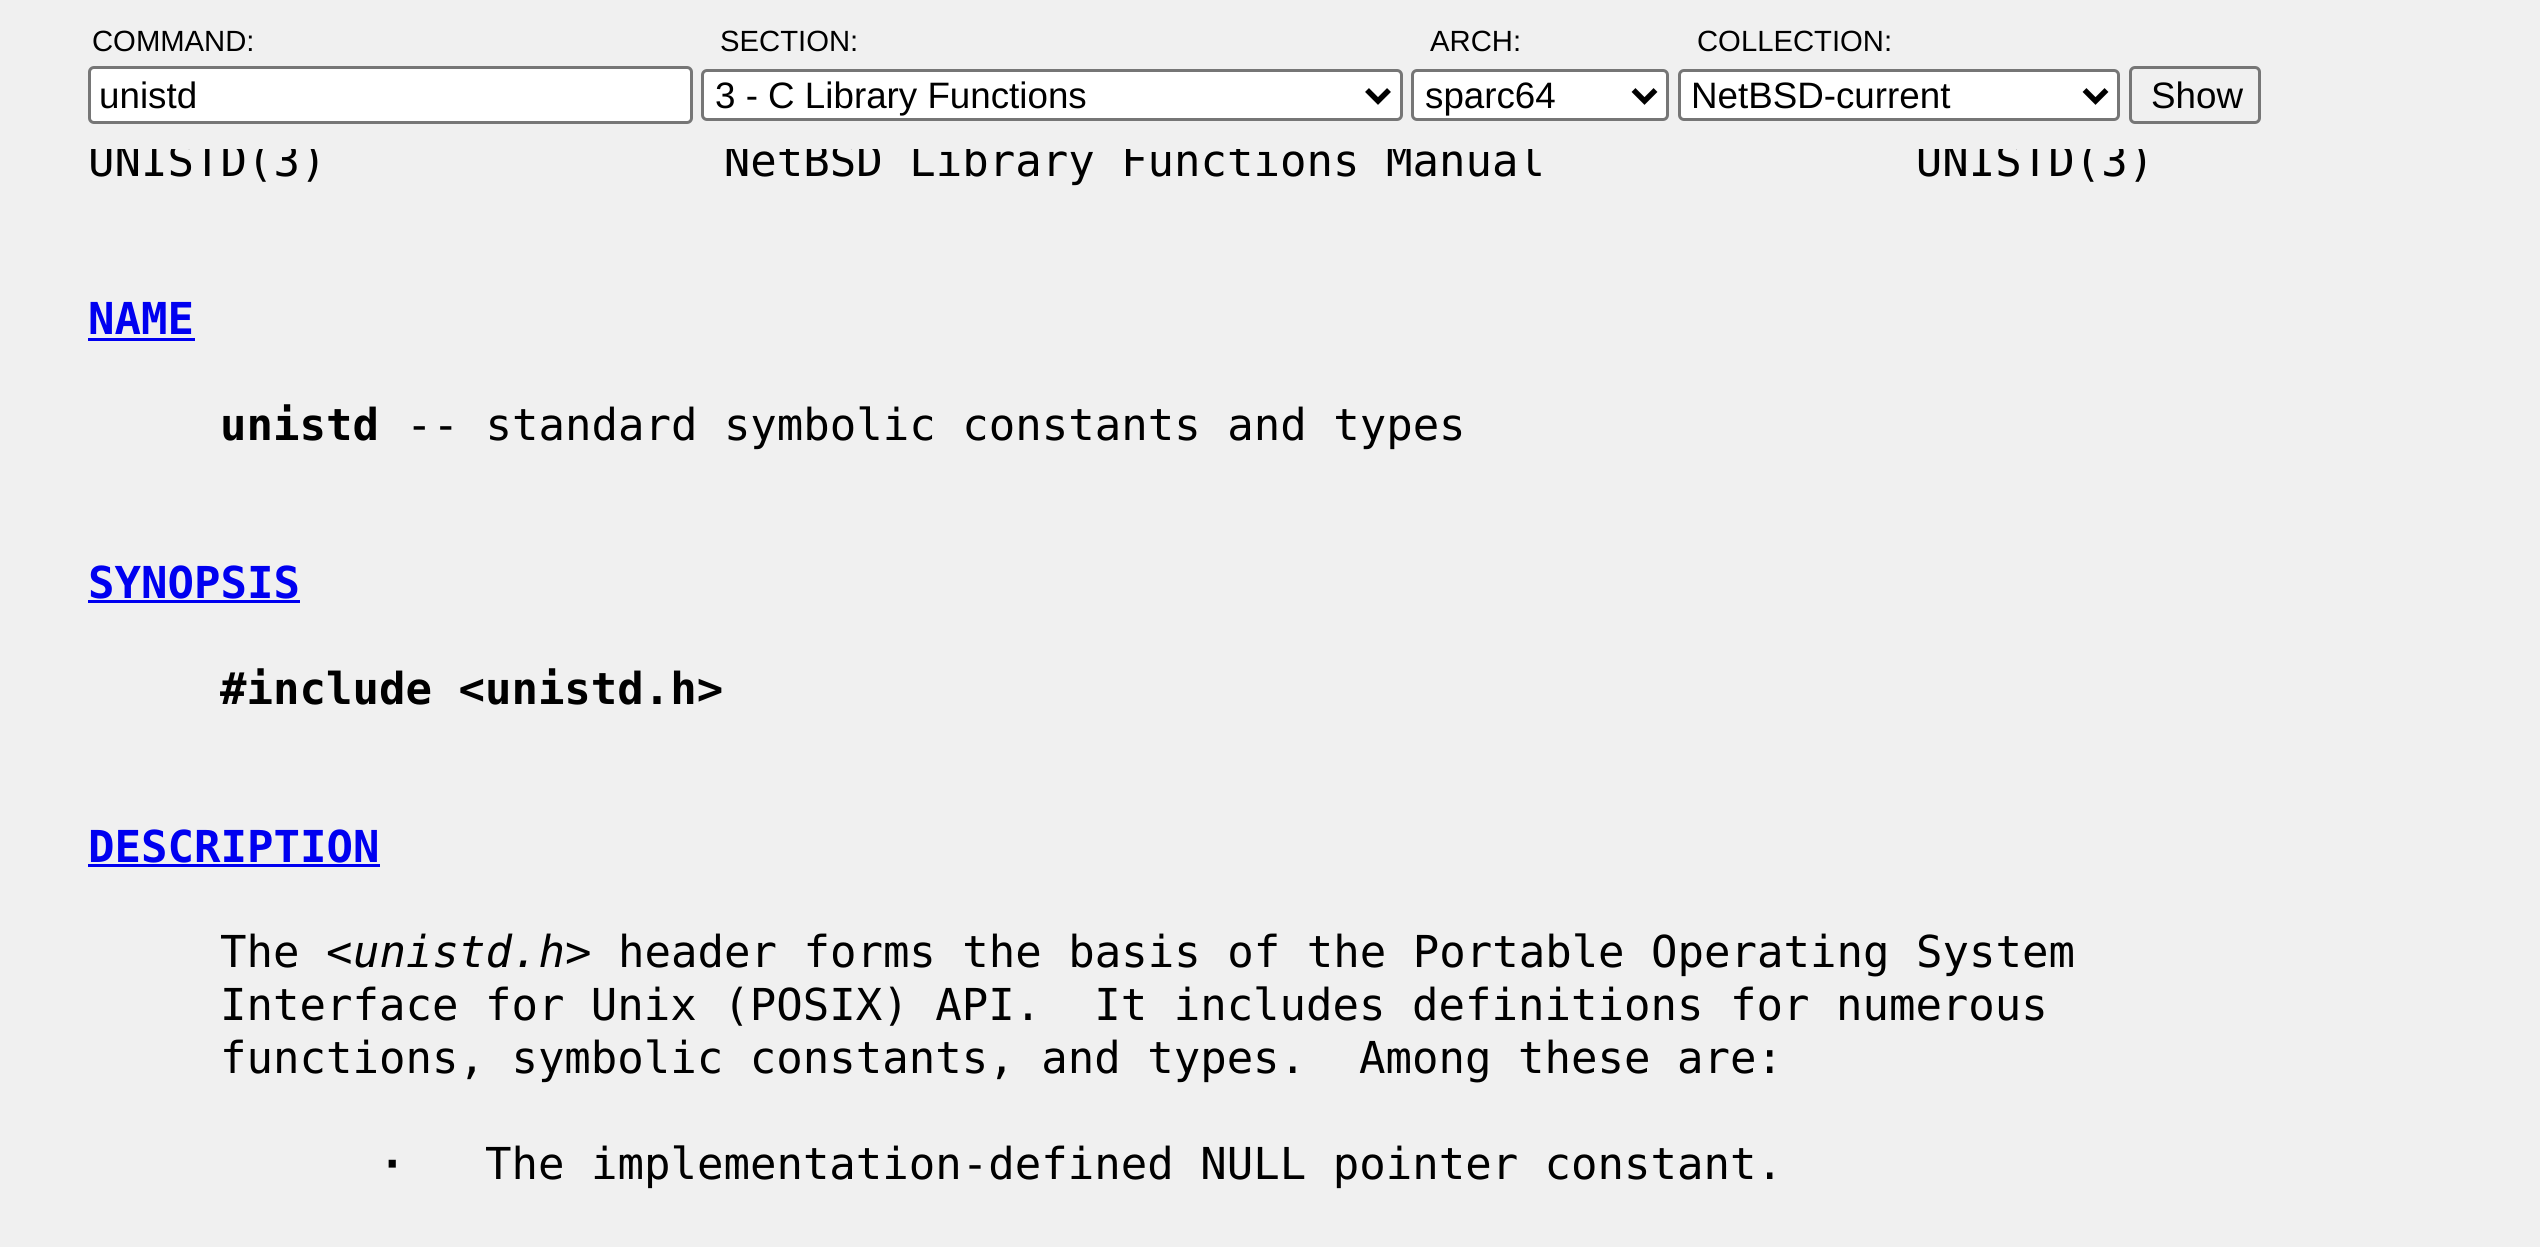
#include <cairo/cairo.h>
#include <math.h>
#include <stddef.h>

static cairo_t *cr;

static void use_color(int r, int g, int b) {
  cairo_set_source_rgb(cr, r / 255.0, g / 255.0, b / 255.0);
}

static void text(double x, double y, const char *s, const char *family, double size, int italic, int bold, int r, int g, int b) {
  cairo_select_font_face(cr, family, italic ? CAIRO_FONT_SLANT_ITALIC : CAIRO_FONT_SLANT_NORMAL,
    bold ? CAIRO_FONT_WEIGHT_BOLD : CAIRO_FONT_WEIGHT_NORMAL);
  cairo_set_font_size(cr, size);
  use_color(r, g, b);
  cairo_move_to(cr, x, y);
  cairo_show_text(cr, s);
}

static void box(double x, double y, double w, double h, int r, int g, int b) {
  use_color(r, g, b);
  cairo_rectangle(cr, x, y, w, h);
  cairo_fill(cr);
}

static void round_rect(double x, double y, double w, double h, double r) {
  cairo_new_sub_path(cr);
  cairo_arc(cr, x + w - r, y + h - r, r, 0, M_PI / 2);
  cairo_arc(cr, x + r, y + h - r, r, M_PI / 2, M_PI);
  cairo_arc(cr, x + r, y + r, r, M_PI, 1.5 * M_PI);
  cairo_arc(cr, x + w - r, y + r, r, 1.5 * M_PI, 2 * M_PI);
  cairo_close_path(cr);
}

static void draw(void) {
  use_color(240, 240, 240);
  cairo_paint(cr);
  use_color(255, 255, 255);
  round_rect(89.5, 67.5, 602, 55, 4.5);
  cairo_fill_preserve(cr);
  use_color(118, 118, 118);
  cairo_set_line_width(cr, 3);
  cairo_stroke(cr);
  use_color(255, 255, 255);
  round_rect(702.5, 70.5, 699, 49, 4.5);
  cairo_fill_preserve(cr);
  use_color(118, 118, 118);
  cairo_stroke(cr);
  cairo_new_path(cr);
  cairo_move_to(cr, 1367, 90);
  cairo_line_to(cr, 1378, 101);
  cairo_line_to(cr, 1389, 90);
  use_color(0, 0, 0);
  cairo_set_line_width(cr, 5.5);
  cairo_stroke(cr);
  use_color(255, 255, 255);
  round_rect(1412.5, 70.5, 255, 49, 4.5);
  cairo_fill_preserve(cr);
  use_color(118, 118, 118);
  cairo_set_line_width(cr, 3);
  cairo_stroke(cr);
  cairo_new_path(cr);
  cairo_move_to(cr, 1633.5, 90);
  cairo_line_to(cr, 1644.5, 101);
  cairo_line_to(cr, 1655.5, 90);
  use_color(0, 0, 0);
  cairo_set_line_width(cr, 5.5);
  cairo_stroke(cr);
  use_color(255, 255, 255);
  round_rect(1679.5, 70.5, 439, 49, 4.5);
  cairo_fill_preserve(cr);
  use_color(118, 118, 118);
  cairo_set_line_width(cr, 3);
  cairo_stroke(cr);
  cairo_new_path(cr);
  cairo_move_to(cr, 2084.5, 90);
  cairo_line_to(cr, 2095.5, 101);
  cairo_line_to(cr, 2106.5, 90);
  use_color(0, 0, 0);
  cairo_set_line_width(cr, 5.5);
  cairo_stroke(cr);
  round_rect(2130.5, 67.5, 129, 55, 4.5);
  use_color(118, 118, 118);
  cairo_set_line_width(cr, 3);
  cairo_stroke(cr);
  box(88, 338, 107, 3, 0, 0, 240);
  box(88, 600, 212, 3, 0, 0, 240);
  box(88, 864, 292, 3, 0, 0, 240);
  text(92, 51, "COMMAND:", "Liberation Sans", 29.25, 0, 0, 0, 0, 0);
  text(99, 108, "unistd", "Liberation Sans", 36.75, 0, 0, 0, 0, 0);
  text(720, 51, "SECTION:", "Liberation Sans", 29.25, 0, 0, 0, 0, 0);
  text(715, 108, "3 - C Library Functions", "Liberation Sans", 36.75, 0, 0, 0, 0, 0);
  text(1430, 51, "ARCH:", "Liberation Sans", 29.25, 0, 0, 0, 0, 0);
  text(1425, 108, "sparc64", "Liberation Sans", 36.75, 0, 0, 0, 0, 0);
  text(1697, 51, "COLLECTION:", "Liberation Sans", 29.25, 0, 0, 0, 0, 0);
  text(1691, 108, "NetBSD-current", "Liberation Sans", 36.75, 0, 0, 0, 0, 0);
  text(2151, 108, "Show", "Liberation Sans", 36.75, 0, 0, 0, 0, 0);
  text(88, 176, "UNISTD(3)               NetBSD Library Functions Manual              UNISTD(3)", "DejaVu Sans Mono", 44, 0, 0, 0, 0, 0);
  box(91, 142, 2052, 7, 240, 240, 240);
  text(88, 334, "NAME", "DejaVu Sans Mono", 44, 0, 1, 0, 0, 240);
  text(220, 440, "unistd", "DejaVu Sans Mono", 44, 0, 1, 0, 0, 0);
  text(406, 440, "-- standard symbolic constants and types", "DejaVu Sans Mono", 44, 0, 0, 0, 0, 0);
  text(88, 598, "SYNOPSIS", "DejaVu Sans Mono", 44, 0, 1, 0, 0, 240);
  text(220, 704, "#include <unistd.h>", "DejaVu Sans Mono", 44, 0, 1, 0, 0, 0);
  text(88, 862, "DESCRIPTION", "DejaVu Sans Mono", 44, 0, 1, 0, 0, 240);
  text(220, 967, "The <", "DejaVu Sans Mono", 44, 0, 0, 0, 0, 0);
  text(353, 967, "unistd.h", "DejaVu Sans Mono", 44, 1, 0, 0, 0, 0);
  text(565, 967, "> header forms the basis of the Portable Operating System", "DejaVu Sans Mono", 44, 0, 0, 0, 0, 0);
  text(220, 1020, "Interface for Unix (POSIX) API.  It includes definitions for numerous", "DejaVu Sans Mono", 44, 0, 0, 0, 0, 0);
  text(220, 1073, "functions, symbolic constants, and types.  Among these are:", "DejaVu Sans Mono", 44, 0, 0, 0, 0, 0);
  text(379, 1179, "·", "DejaVu Sans Mono", 44, 0, 1, 0, 0, 0);
  text(485, 1179, "The implementation-defined NULL pointer constant.", "DejaVu Sans Mono", 44, 0, 0, 0, 0, 0);
}

int main(void) {
  cairo_surface_t *surface = cairo_image_surface_create(CAIRO_FORMAT_RGB24, 2540, 1247);
  cr = cairo_create(surface);
  cairo_font_options_t *options = cairo_font_options_create();
  cairo_font_options_set_hint_metrics(options, CAIRO_HINT_METRICS_OFF);
  cairo_font_options_set_hint_style(options, CAIRO_HINT_STYLE_NONE);
  cairo_set_font_options(cr, options);
  cairo_set_miter_limit(cr, 4);
  draw();
  cairo_surface_write_to_png(surface, "out.png");
  cairo_font_options_destroy(options);
  cairo_destroy(cr);
  cairo_surface_destroy(surface);
  return 0;
}
